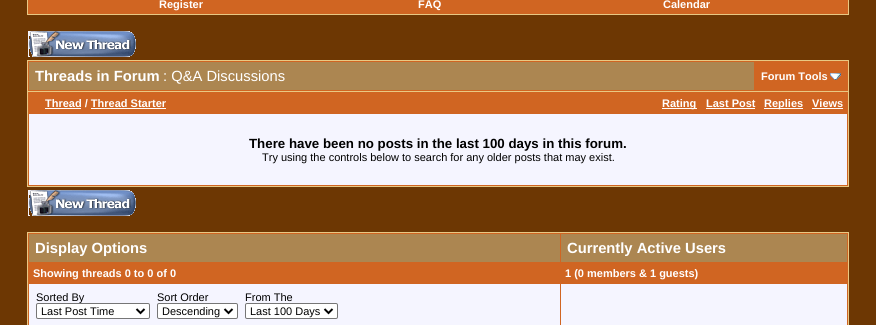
#include <cairo/cairo.h>
#include <math.h>
#include <stddef.h>

static cairo_t *cr;

static void use_color(int r, int g, int b) {
  cairo_set_source_rgb(cr, r / 255.0, g / 255.0, b / 255.0);
}

static void text(double x, double y, const char *s, const char *family, double size, int italic, int bold, int r, int g, int b) {
  cairo_select_font_face(cr, family, italic ? CAIRO_FONT_SLANT_ITALIC : CAIRO_FONT_SLANT_NORMAL,
    bold ? CAIRO_FONT_WEIGHT_BOLD : CAIRO_FONT_WEIGHT_NORMAL);
  cairo_set_font_size(cr, size);
  use_color(r, g, b);
  cairo_move_to(cr, x, y);
  cairo_show_text(cr, s);
}

static void box(double x, double y, double w, double h, int r, int g, int b) {
  use_color(r, g, b);
  cairo_rectangle(cr, x, y, w, h);
  cairo_fill(cr);
}

static void round_rect(double x, double y, double w, double h, double r) {
  cairo_new_sub_path(cr);
  cairo_arc(cr, x + w - r, y + h - r, r, 0, M_PI / 2);
  cairo_arc(cr, x + r, y + h - r, r, M_PI / 2, M_PI);
  cairo_arc(cr, x + r, y + r, r, M_PI, 1.5 * M_PI);
  cairo_arc(cr, x + w - r, y + r, r, 1.5 * M_PI, 2 * M_PI);
  cairo_close_path(cr);
}

static void picture(const char *path, double x, double y, double w, double h) {
  cairo_surface_t *image = cairo_image_surface_create_from_png(path);
  cairo_save(cr);
  cairo_set_source_surface(cr, image, x, y);
  cairo_rectangle(cr, x, y, w, h);
  cairo_fill(cr);
  cairo_restore(cr);
  cairo_surface_destroy(image);
}

static void draw(void) {
  use_color(109, 55, 3);
  cairo_paint(cr);
  box(28, 0, 820, 14, 208, 101, 34);
  box(848, 0, 1, 15, 233, 200, 131);
  box(27, 14, 822, 1, 233, 200, 131);
  box(27, 0, 1, 15, 233, 200, 131);
  picture("img_01.png", 28, 31, 108, 26);
  box(28, 61, 820, 30, 208, 101, 34);
  box(27, 60, 822, 1, 233, 200, 131);
  box(848, 60, 1, 31, 233, 200, 131);
  box(27, 60, 1, 31, 233, 200, 131);
  box(29, 62, 725, 28, 172, 134, 81);
  picture("img_02.png", 830, 73, 11, 7);
  use_color(208, 101, 34);
  cairo_rectangle(cr, 27.5, 91.5, 821, 95);
  cairo_fill_preserve(cr);
  use_color(233, 200, 131);
  cairo_set_line_width(cr, 1);
  cairo_stroke(cr);
  box(45, 108, 36, 1, 255, 255, 255);
  box(662, 108, 35, 1, 255, 255, 255);
  box(91, 108, 75, 1, 255, 255, 255);
  box(706, 108, 49, 1, 255, 255, 255);
  box(764, 108, 39, 1, 255, 255, 255);
  box(812, 108, 31, 1, 255, 255, 255);
  box(29, 114, 818, 71, 245, 245, 255);
  picture("img_01.png", 28, 190, 108, 26);
  use_color(208, 101, 34);
  cairo_rectangle(cr, 27.5, 232.5, 821, 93);
  cairo_fill_preserve(cr);
  use_color(233, 200, 131);
  cairo_stroke(cr);
  box(29, 234, 531, 28, 172, 134, 81);
  box(561, 234, 286, 28, 172, 134, 81);
  box(29, 284, 531, 41, 245, 245, 255);
  use_color(255, 255, 255);
  round_rect(157.5, 303.5, 80, 15, 1.5);
  cairo_fill_preserve(cr);
  use_color(118, 118, 118);
  cairo_stroke(cr);
  cairo_new_path(cr);
  cairo_move_to(cr, 224.5, 309);
  cairo_line_to(cr, 228.5, 313);
  cairo_line_to(cr, 232.5, 309);
  use_color(0, 0, 0);
  cairo_set_line_width(cr, 2);
  cairo_stroke(cr);
  use_color(255, 255, 255);
  round_rect(245.5, 303.5, 92, 15, 1.5);
  cairo_fill_preserve(cr);
  use_color(118, 118, 118);
  cairo_set_line_width(cr, 1);
  cairo_stroke(cr);
  cairo_new_path(cr);
  cairo_move_to(cr, 324.5, 309);
  cairo_line_to(cr, 328.5, 313);
  cairo_line_to(cr, 332.5, 309);
  use_color(0, 0, 0);
  cairo_set_line_width(cr, 2);
  cairo_stroke(cr);
  box(561, 284, 286, 41, 245, 245, 255);
  text(159, 8, "Register", "Liberation Sans", 11, 0, 1, 255, 255, 255);
  text(418, 8, "FAQ", "Liberation Sans", 11, 0, 1, 255, 255, 255);
  text(663, 8, "Calendar", "Liberation Sans", 11, 0, 1, 255, 255, 255);
  text(35, 81, "Threads in Forum", "Liberation Sans", 14.75, 0, 1, 255, 255, 255);
  text(163, 81, ": Q&A Discussions", "Liberation Sans", 14.75, 0, 0, 255, 255, 255);
  text(761, 80, "Forum Tools", "Liberation Sans", 11, 0, 1, 255, 255, 255);
  text(45, 107, "Thread / Thread Starter", "Liberation Sans", 11, 0, 1, 255, 255, 255);
  text(662, 107, "Rating", "Liberation Sans", 11, 0, 1, 255, 255, 255);
  text(706, 107, "Last Post", "Liberation Sans", 11, 0, 1, 255, 255, 255);
  text(764, 107, "Replies", "Liberation Sans", 11, 0, 1, 255, 255, 255);
  text(812, 107, "Views", "Liberation Sans", 11, 0, 1, 255, 255, 255);
  text(249, 148, "There have been no posts in the last 100 days in this forum.", "Liberation Sans", 13.3, 0, 1, 0, 0, 0);
  text(262, 161, "Try using the controls below to search for any older posts that may exist.", "Liberation Sans", 11, 0, 0, 0, 0, 0);
  text(35, 253, "Display Options", "Liberation Sans", 14.75, 0, 1, 255, 255, 255);
  text(567, 253, "Currently Active Users", "Liberation Sans", 14.75, 0, 1, 255, 255, 255);
  text(33, 277, "Showing threads 0 to 0 of 0", "Liberation Sans", 11, 0, 1, 255, 255, 255);
  text(565, 277, "1 (0 members & 1 guests)", "Liberation Sans", 11, 0, 1, 255, 255, 255);
  text(36, 301, "Sorted By", "Liberation Sans", 11, 0, 0, 0, 0, 0);
  use_color(255, 255, 255);
  round_rect(36.5, 303.5, 113, 15, 1.5);
  cairo_fill_preserve(cr);
  use_color(118, 118, 118);
  cairo_set_line_width(cr, 1);
  cairo_stroke(cr);
  cairo_new_path(cr);
  cairo_move_to(cr, 136.5, 309);
  cairo_line_to(cr, 140.5, 313);
  cairo_line_to(cr, 144.5, 309);
  use_color(0, 0, 0);
  cairo_set_line_width(cr, 2);
  cairo_stroke(cr);
  text(41, 315, "Last Post Time", "Liberation Sans", 11, 0, 0, 0, 0, 0);
  text(157, 301, "Sort Order", "Liberation Sans", 11, 0, 0, 0, 0, 0);
  text(162, 315, "Descending", "Liberation Sans", 11, 0, 0, 0, 0, 0);
  text(245, 301, "From The", "Liberation Sans", 11, 0, 0, 0, 0, 0);
  text(250, 315, "Last 100 Days", "Liberation Sans", 11, 0, 0, 0, 0, 0);
}

int main(void) {
  cairo_surface_t *surface = cairo_image_surface_create(CAIRO_FORMAT_RGB24, 876, 325);
  cr = cairo_create(surface);
  cairo_font_options_t *options = cairo_font_options_create();
  cairo_font_options_set_hint_metrics(options, CAIRO_HINT_METRICS_OFF);
  cairo_font_options_set_hint_style(options, CAIRO_HINT_STYLE_NONE);
  cairo_set_font_options(cr, options);
  cairo_set_miter_limit(cr, 4);
  draw();
  cairo_surface_write_to_png(surface, "out.png");
  cairo_font_options_destroy(options);
  cairo_destroy(cr);
  cairo_surface_destroy(surface);
  return 0;
}
